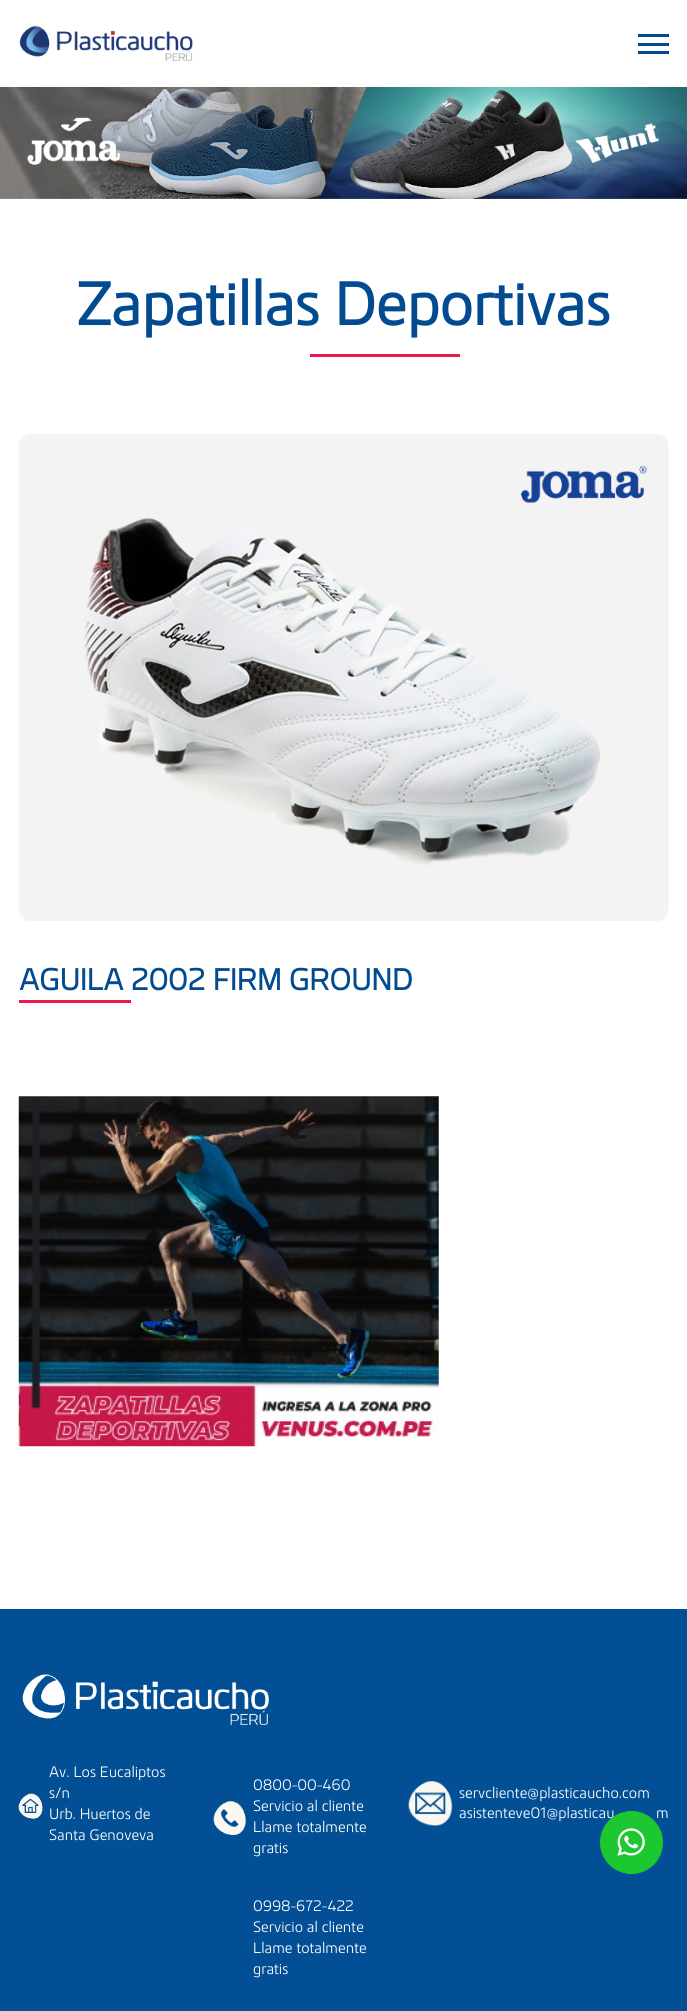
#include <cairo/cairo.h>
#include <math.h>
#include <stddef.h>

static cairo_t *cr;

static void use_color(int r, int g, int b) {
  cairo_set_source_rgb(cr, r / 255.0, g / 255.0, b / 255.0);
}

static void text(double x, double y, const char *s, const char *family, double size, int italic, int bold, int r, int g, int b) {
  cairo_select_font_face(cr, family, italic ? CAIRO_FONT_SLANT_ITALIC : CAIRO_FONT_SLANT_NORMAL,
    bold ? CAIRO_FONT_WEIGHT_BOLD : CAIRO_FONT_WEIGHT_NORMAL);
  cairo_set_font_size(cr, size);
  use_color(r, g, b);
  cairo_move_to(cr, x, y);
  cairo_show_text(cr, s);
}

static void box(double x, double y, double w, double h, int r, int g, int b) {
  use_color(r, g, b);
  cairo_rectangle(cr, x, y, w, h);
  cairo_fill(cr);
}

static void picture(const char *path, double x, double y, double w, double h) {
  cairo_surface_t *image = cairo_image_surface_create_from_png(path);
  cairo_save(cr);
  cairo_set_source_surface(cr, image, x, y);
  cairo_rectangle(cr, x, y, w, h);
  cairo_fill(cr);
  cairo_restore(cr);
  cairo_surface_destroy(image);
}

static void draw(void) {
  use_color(255, 255, 255);
  cairo_paint(cr);
  picture("img_01.png", 19, 25, 174, 36);
  box(638, 34, 31, 3, 2, 75, 144);
  box(638, 43, 31, 3, 2, 75, 144);
  box(638, 51, 31, 3, 2, 75, 144);
  picture("img_02.png", 0, 87, 687, 112);
  box(310, 354, 150, 3, 238, 23, 76);
  picture("img_03.png", 19, 434, 650, 487);
  box(19, 1000, 112, 3, 238, 23, 76);
  picture("img_04.png", 18, 1096, 421, 351);
  box(0, 1609, 687, 402, 2, 79, 149);
  picture("img_05.png", 22, 1674, 247, 51);
  picture("img_06.png", 18, 1793, 25, 26);
  picture("img_07.png", 213, 1801, 33, 34);
  picture("img_08.png", 408, 1781, 45, 46);
  text(77, 325, "Zapatillas Deportivas", "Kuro", 60, 0, 1, 2, 75, 144);
  text(19, 990, "AGUILA 2002 FIRM GROUND", "Kuro", 30, 0, 1, 2, 75, 144);
  text(49, 1777, "Av. Los Eucaliptos", "Kuro", 15, 0, 0, 255, 255, 255);
  text(49, 1798, "s/n", "Kuro", 15, 0, 0, 255, 255, 255);
  text(49, 1819, "Urb. Huertos de", "Kuro", 15, 0, 0, 255, 255, 255);
  text(49, 1840, "Santa Genoveva", "Kuro", 15, 0, 0, 255, 255, 255);
  text(253, 1790, "0800-00-460", "Kuro", 15, 0, 0, 255, 255, 255);
  text(253, 1811, "Servicio al cliente", "Kuro", 15, 0, 0, 255, 255, 255);
  text(253, 1832, "Llame totalmente", "Kuro", 15, 0, 0, 255, 255, 255);
  text(253, 1853, "gratis", "Kuro", 15, 0, 0, 255, 255, 255);
  text(253, 1911, "0998-672-422", "Kuro", 15, 0, 0, 255, 255, 255);
  text(253, 1932, "Servicio al cliente", "Kuro", 15, 0, 0, 255, 255, 255);
  text(253, 1953, "Llame totalmente", "Kuro", 15, 0, 0, 255, 255, 255);
  text(253, 1974, "gratis", "Kuro", 15, 0, 0, 255, 255, 255);
  text(459, 1798, "servcliente@plasticaucho.com", "Kuro", 15, 0, 0, 255, 255, 255);
  text(459, 1818, "asistenteve01@plasticau", "Kuro", 15, 0, 0, 255, 255, 255);
  text(656, 1818, "m", "Kuro", 15, 0, 0, 255, 255, 255);
  use_color(28, 199, 47);
  cairo_new_path(cr);
  cairo_arc(cr, 631.5, 1842.5, 31, 0, 2 * M_PI);
  cairo_fill_preserve(cr);
  cairo_set_line_width(cr, 1);
  cairo_stroke(cr);
  picture("img_09.png", 617, 1828, 28, 28);
}

int main(void) {
  cairo_surface_t *surface = cairo_image_surface_create(CAIRO_FORMAT_RGB24, 687, 2011);
  cr = cairo_create(surface);
  cairo_font_options_t *options = cairo_font_options_create();
  cairo_font_options_set_hint_metrics(options, CAIRO_HINT_METRICS_OFF);
  cairo_font_options_set_hint_style(options, CAIRO_HINT_STYLE_NONE);
  cairo_set_font_options(cr, options);
  cairo_set_miter_limit(cr, 4);
  draw();
  cairo_surface_write_to_png(surface, "out.png");
  cairo_font_options_destroy(options);
  cairo_destroy(cr);
  cairo_surface_destroy(surface);
  return 0;
}
